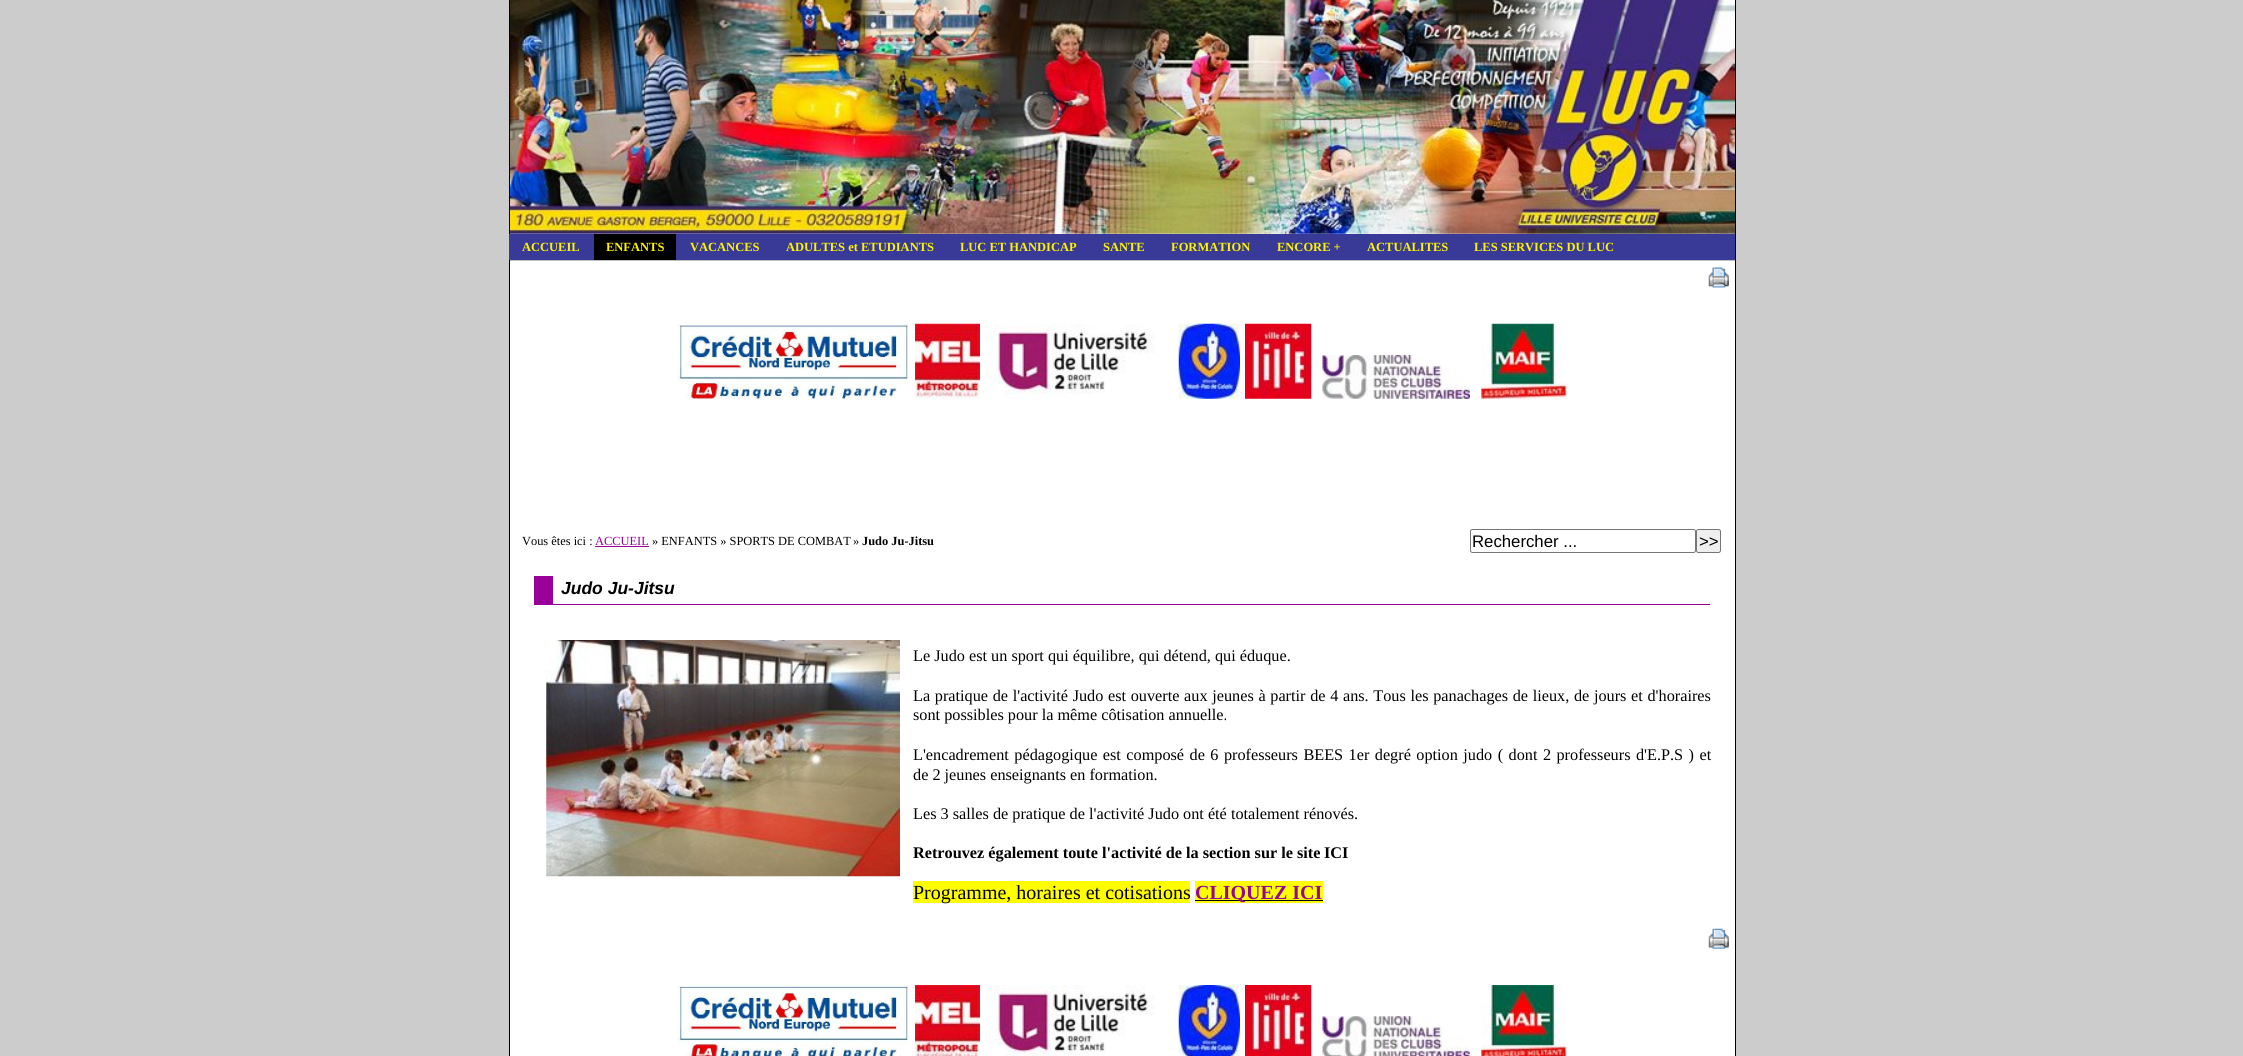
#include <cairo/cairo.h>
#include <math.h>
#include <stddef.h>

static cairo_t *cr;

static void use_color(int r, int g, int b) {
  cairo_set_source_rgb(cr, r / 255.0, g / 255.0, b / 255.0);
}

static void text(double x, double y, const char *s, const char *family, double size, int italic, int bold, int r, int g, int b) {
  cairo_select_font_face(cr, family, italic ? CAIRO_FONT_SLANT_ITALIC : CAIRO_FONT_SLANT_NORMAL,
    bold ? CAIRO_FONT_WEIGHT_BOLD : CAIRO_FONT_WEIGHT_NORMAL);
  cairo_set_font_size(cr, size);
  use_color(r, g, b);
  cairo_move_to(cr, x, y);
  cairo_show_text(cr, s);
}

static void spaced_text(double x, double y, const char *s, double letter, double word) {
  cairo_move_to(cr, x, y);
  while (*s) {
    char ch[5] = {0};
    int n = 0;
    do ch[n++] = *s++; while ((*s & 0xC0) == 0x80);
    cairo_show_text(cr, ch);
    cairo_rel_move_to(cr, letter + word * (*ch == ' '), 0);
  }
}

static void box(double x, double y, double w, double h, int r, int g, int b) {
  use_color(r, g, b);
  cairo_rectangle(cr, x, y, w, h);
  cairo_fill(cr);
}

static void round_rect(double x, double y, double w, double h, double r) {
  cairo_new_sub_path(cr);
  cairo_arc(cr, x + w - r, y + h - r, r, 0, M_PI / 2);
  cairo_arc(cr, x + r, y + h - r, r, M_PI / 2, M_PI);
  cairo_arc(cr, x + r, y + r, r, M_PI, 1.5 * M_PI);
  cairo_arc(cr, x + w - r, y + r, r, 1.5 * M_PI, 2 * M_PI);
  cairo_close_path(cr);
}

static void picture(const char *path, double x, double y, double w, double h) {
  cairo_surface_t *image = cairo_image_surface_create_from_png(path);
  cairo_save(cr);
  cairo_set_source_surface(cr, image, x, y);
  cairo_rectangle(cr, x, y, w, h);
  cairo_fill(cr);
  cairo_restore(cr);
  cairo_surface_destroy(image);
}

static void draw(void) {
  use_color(204, 204, 204);
  cairo_paint(cr);
  box(510, 233, 1225, 823, 255, 255, 255);
  cairo_rectangle(cr, 509.5, -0.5, 1226, 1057);
  use_color(0, 0, 0);
  cairo_set_line_width(cr, 1);
  cairo_stroke(cr);
  picture("img_01.png", 510, 0, 1225, 234);
  box(676, 234, 1059, 26, 57, 58, 151);
  box(510, 260, 1225, 1, 192, 192, 192);
  box(509, 234, 85, 26, 57, 58, 151);
  box(594, 234, 82, 26, 0, 0, 0);
  picture("img_02.png", 1708, 267, 21, 21);
  picture("img_03.png", 677, 323, 232, 76);
  picture("img_04.png", 915, 323, 65, 76);
  picture("img_05.png", 985, 324, 170, 75);
  picture("img_06.png", 1178, 323, 62, 76);
  picture("img_07.png", 1245, 323, 67, 76);
  picture("img_08.png", 1322, 355, 148, 44);
  picture("img_09.png", 1481, 323, 86, 76);
  box(595, 546, 54, 1, 151, 5, 150);
  round_rect(1470.5, 529.5, 225, 23, 2);
  use_color(118, 118, 118);
  cairo_stroke(cr);
  use_color(239, 239, 239);
  round_rect(1696.5, 529.5, 24, 23, 2);
  cairo_fill_preserve(cr);
  use_color(118, 118, 118);
  cairo_stroke(cr);
  box(553, 604, 1157, 1, 153, 0, 153);
  box(534, 576, 19, 29, 153, 0, 153);
  picture("img_10.png", 546, 640, 354, 237);
  box(913, 881, 277, 22, 255, 255, 0);
  box(1195, 881, 128, 22, 255, 255, 0);
  box(1195, 900, 128, 1, 0, 0, 0);
  picture("img_11.png", 1708, 928, 21, 21);
  picture("img_12.png", 677, 985, 232, 71);
  picture("img_13.png", 915, 985, 65, 71);
  picture("img_14.png", 985, 985, 170, 71);
  picture("img_15.png", 1178, 985, 62, 71);
  picture("img_16.png", 1245, 985, 67, 71);
  picture("img_17.png", 1322, 1016, 148, 40);
  picture("img_18.png", 1481, 985, 86, 71);
  text(522, 251, "ACCUEIL", "Liberation Serif", 12.5, 0, 1, 251, 243, 0);
  text(606, 251, "ENFANTS", "Liberation Serif", 12.5, 0, 1, 251, 243, 0);
  text(690, 251, "VACANCES", "Liberation Serif", 12.5, 0, 1, 251, 243, 0);
  text(786, 251, "ADULTES et ETUDIANTS", "Liberation Serif", 12.5, 0, 1, 251, 243, 0);
  text(960, 251, "LUC ET HANDICAP", "Liberation Serif", 12.5, 0, 1, 251, 243, 0);
  text(1103, 251, "SANTE", "Liberation Serif", 12.5, 0, 1, 251, 243, 0);
  text(1171, 251, "FORMATION", "Liberation Serif", 12.5, 0, 1, 251, 243, 0);
  text(1277, 251, "ENCORE +", "Liberation Serif", 12.5, 0, 1, 251, 243, 0);
  text(1367, 251, "ACTUALITES", "Liberation Serif", 12.5, 0, 1, 251, 243, 0);
  text(1474, 251, "LES SERVICES DU LUC", "Liberation Serif", 12.5, 0, 1, 251, 243, 0);
  text(522, 545, "Vous êtes ici :", "Liberation Serif", 12.4, 0, 0, 0, 0, 0);
  text(595, 545, "ACCUEIL", "Liberation Serif", 12.4, 0, 0, 151, 5, 150);
  text(652, 545, "» ENFANTS » SPORTS DE COMBAT", "Liberation Serif", 12.4, 0, 0, 0, 0, 0);
  text(853, 545, "»", "Liberation Serif", 12.4, 0, 0, 0, 0, 0);
  text(862, 545, "Judo Ju-Jitsu", "Liberation Serif", 12.4, 0, 1, 0, 0, 0);
  text(1472, 547, "Rechercher ...", "Liberation Sans", 16.75, 0, 0, 0, 0, 0);
  text(1699, 547, ">>", "Liberation Sans", 16.75, 0, 0, 0, 0, 0);
  text(561, 594, "Judo Ju-Jitsu", "Liberation Sans", 17.5, 1, 1, 0, 0, 0);
  text(913, 661, "Le Judo est un sport qui équilibre, qui détend, qui éduque.", "Liberation Serif", 16.25, 0, 0, 0, 0, 0);
  spaced_text(913, 701, "La pratique de l'activité Judo est ouverte aux jeunes à partir de 4 ans. Tous les panachages de lieux, de jours et d'horaires", 0, 0.6);
  text(913, 720, "sont possibles pour la même côtisation annuelle.", "Liberation Serif", 16.25, 0, 0, 0, 0, 0);
  spaced_text(913, 760, "L'encadrement pédagogique est composé de 6 professeurs BEES 1er degré option judo ( dont 2 professeurs d'E.P.S ) et", 0, 1.4);
  text(913, 780, "de 2 jeunes enseignants en formation.", "Liberation Serif", 16.25, 0, 0, 0, 0, 0);
  text(913, 819, "Les 3 salles de pratique de l'activité Judo ont été totalement rénovés.", "Liberation Serif", 16.25, 0, 0, 0, 0, 0);
  text(913, 858, "Retrouvez également toute l'activité de la section sur le site", "Liberation Serif", 16.25, 0, 1, 0, 0, 0);
  text(1324, 858, "ICI", "Liberation Serif", 16.25, 0, 1, 0, 0, 0);
  text(913, 899, "Programme, horaires et cotisations", "Liberation Serif", 20, 0, 0, 0, 0, 0);
  text(1195, 899, "CLIQUEZ ICI", "Liberation Serif", 20, 0, 1, 151, 5, 150);
}

int main(void) {
  cairo_surface_t *surface = cairo_image_surface_create(CAIRO_FORMAT_RGB24, 2243, 1056);
  cr = cairo_create(surface);
  cairo_font_options_t *options = cairo_font_options_create();
  cairo_font_options_set_hint_metrics(options, CAIRO_HINT_METRICS_OFF);
  cairo_font_options_set_hint_style(options, CAIRO_HINT_STYLE_NONE);
  cairo_set_font_options(cr, options);
  cairo_set_miter_limit(cr, 4);
  draw();
  cairo_surface_write_to_png(surface, "out.png");
  cairo_font_options_destroy(options);
  cairo_destroy(cr);
  cairo_surface_destroy(surface);
  return 0;
}
